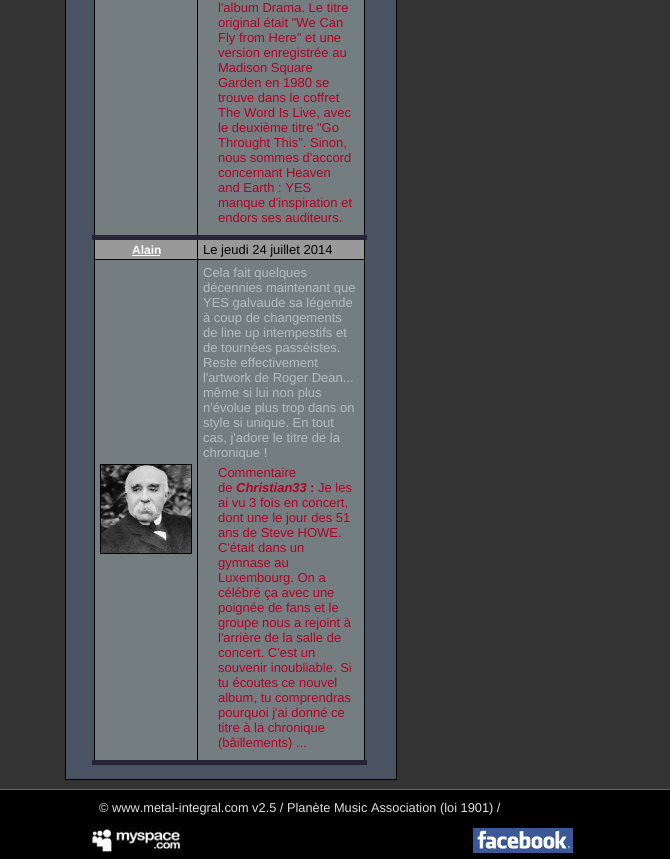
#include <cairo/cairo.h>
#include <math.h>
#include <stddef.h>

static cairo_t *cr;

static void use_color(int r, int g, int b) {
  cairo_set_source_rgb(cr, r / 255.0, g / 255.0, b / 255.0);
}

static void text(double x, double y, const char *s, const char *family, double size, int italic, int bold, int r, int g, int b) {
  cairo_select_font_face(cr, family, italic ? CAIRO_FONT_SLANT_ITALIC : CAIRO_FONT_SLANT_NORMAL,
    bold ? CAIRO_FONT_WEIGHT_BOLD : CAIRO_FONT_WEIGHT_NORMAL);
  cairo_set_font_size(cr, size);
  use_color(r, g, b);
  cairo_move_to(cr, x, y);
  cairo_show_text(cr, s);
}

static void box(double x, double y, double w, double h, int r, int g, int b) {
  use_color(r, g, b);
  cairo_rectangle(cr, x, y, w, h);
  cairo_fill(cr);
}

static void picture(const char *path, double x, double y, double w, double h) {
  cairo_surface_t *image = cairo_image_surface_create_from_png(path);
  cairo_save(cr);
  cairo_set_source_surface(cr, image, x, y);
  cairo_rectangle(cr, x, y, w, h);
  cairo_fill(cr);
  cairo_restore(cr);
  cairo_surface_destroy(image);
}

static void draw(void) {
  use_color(51, 51, 51);
  cairo_paint(cr);
  use_color(74, 83, 97);
  cairo_rectangle(cr, 65.5, -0.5, 331, 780);
  cairo_fill_preserve(cr);
  use_color(0, 0, 0);
  cairo_set_line_width(cr, 1);
  cairo_stroke(cr);
  box(95, 0, 269, 760, 116, 126, 128);
  box(364, 0, 1, 765, 0, 0, 0);
  box(94, 0, 1, 765, 0, 0, 0);
  box(95, 240, 269, 19, 153, 153, 153);
  box(197, 259, 1, 504, 0, 0, 0);
  box(197, 259, 168, 1, 0, 0, 0);
  box(197, 0, 1, 260, 0, 0, 0);
  box(92, 235, 275, 5, 40, 37, 57);
  box(94, 259, 104, 1, 0, 0, 0);
  box(132, 255, 28, 1, 255, 255, 255);
  cairo_rectangle(cr, 100.5, 464.5, 91, 89);
  use_color(0, 0, 0);
  cairo_stroke(cr);
  picture("img_01.png", 101, 465, 90, 88);
  box(92, 760, 275, 5, 40, 37, 57);
  box(0, 790, 670, 69, 0, 0, 0);
  box(0, 789, 670, 1, 102, 102, 102);
  picture("img_02.png", 90, 828, 92, 24);
  picture("img_03.png", 473, 828, 100, 25);
  text(218, 12, "l'album Drama. Le titre", "Liberation Sans", 13, 0, 0, 182, 0, 39);
  text(218, 27, "original était \"We Can", "Liberation Sans", 13, 0, 0, 182, 0, 39);
  text(218, 42, "Fly from Here\" et une", "Liberation Sans", 13, 0, 0, 182, 0, 39);
  text(218, 57, "version enregistrée au", "Liberation Sans", 13, 0, 0, 182, 0, 39);
  text(218, 72, "Madison Square", "Liberation Sans", 13, 0, 0, 182, 0, 39);
  text(218, 87, "Garden en 1980 se", "Liberation Sans", 13, 0, 0, 182, 0, 39);
  text(218, 102, "trouve dans le coffret", "Liberation Sans", 13, 0, 0, 182, 0, 39);
  text(218, 117, "The Word Is Live, avec", "Liberation Sans", 13, 0, 0, 182, 0, 39);
  text(218, 132, "le deuxième titre \"Go", "Liberation Sans", 13, 0, 0, 182, 0, 39);
  text(218, 147, "Throught This\". Sinon,", "Liberation Sans", 13, 0, 0, 182, 0, 39);
  text(218, 162, "nous sommes d'accord", "Liberation Sans", 13, 0, 0, 182, 0, 39);
  text(218, 177, "concernant Heaven", "Liberation Sans", 13, 0, 0, 182, 0, 39);
  text(218, 192, "and Earth : YES", "Liberation Sans", 13, 0, 0, 182, 0, 39);
  text(218, 207, "manque d'inspiration et", "Liberation Sans", 13, 0, 0, 182, 0, 39);
  text(218, 222, "endors ses auditeurs.", "Liberation Sans", 13, 0, 0, 182, 0, 39);
  text(132, 254, "Alain", "Liberation Sans", 12, 0, 1, 255, 255, 255);
  text(203, 254, "Le jeudi 24 juillet 2014", "Liberation Sans", 13, 0, 0, 0, 0, 0);
  text(203, 277, "Cela fait quelques", "Liberation Sans", 13, 0, 0, 178, 189, 193);
  text(203, 292, "décennies maintenant que", "Liberation Sans", 13, 0, 0, 178, 189, 193);
  text(203, 307, "YES galvaude sa légende", "Liberation Sans", 13, 0, 0, 178, 189, 193);
  text(203, 322, "à coup de changements", "Liberation Sans", 13, 0, 0, 178, 189, 193);
  text(203, 337, "de line up intempestifs et", "Liberation Sans", 13, 0, 0, 178, 189, 193);
  text(203, 352, "de tournées passéistes.", "Liberation Sans", 13, 0, 0, 178, 189, 193);
  text(203, 367, "Reste effectivement", "Liberation Sans", 13, 0, 0, 178, 189, 193);
  text(203, 382, "l'artwork de Roger Dean...", "Liberation Sans", 13, 0, 0, 178, 189, 193);
  text(203, 397, "même si lui non plus", "Liberation Sans", 13, 0, 0, 178, 189, 193);
  text(203, 412, "n'évolue plus trop dans on", "Liberation Sans", 13, 0, 0, 178, 189, 193);
  text(203, 427, "style si unique. En tout", "Liberation Sans", 13, 0, 0, 178, 189, 193);
  text(203, 442, "cas, j'adore le titre de la", "Liberation Sans", 13, 0, 0, 178, 189, 193);
  text(203, 457, "chronique !", "Liberation Sans", 13, 0, 0, 178, 189, 193);
  text(218, 477, "Commentaire", "Liberation Sans", 13, 0, 0, 182, 0, 39);
  text(218, 492, "de", "Liberation Sans", 13, 0, 0, 182, 0, 39);
  text(236, 492, "Christian33", "Liberation Sans", 13, 1, 1, 182, 0, 39);
  text(310, 492, ":", "Liberation Sans", 13, 0, 1, 182, 0, 39);
  text(318, 492, "Je les", "Liberation Sans", 13, 0, 0, 182, 0, 39);
  text(218, 507, "ai vu 3 fois en concert,", "Liberation Sans", 13, 0, 0, 182, 0, 39);
  text(218, 522, "dont une le jour des 51", "Liberation Sans", 13, 0, 0, 182, 0, 39);
  text(218, 537, "ans de Steve HOWE.", "Liberation Sans", 13, 0, 0, 182, 0, 39);
  text(218, 552, "C'était dans un", "Liberation Sans", 13, 0, 0, 182, 0, 39);
  text(218, 567, "gymnase au", "Liberation Sans", 13, 0, 0, 182, 0, 39);
  text(218, 582, "Luxembourg. On a", "Liberation Sans", 13, 0, 0, 182, 0, 39);
  text(218, 597, "célébré ça avec une", "Liberation Sans", 13, 0, 0, 182, 0, 39);
  text(218, 612, "poignée de fans et le", "Liberation Sans", 13, 0, 0, 182, 0, 39);
  text(218, 627, "groupe nous a rejoint à", "Liberation Sans", 13, 0, 0, 182, 0, 39);
  text(218, 642, "l'arrière de la salle de", "Liberation Sans", 13, 0, 0, 182, 0, 39);
  text(218, 657, "concert. C'est un", "Liberation Sans", 13, 0, 0, 182, 0, 39);
  text(218, 672, "souvenir inoubliable. Si", "Liberation Sans", 13, 0, 0, 182, 0, 39);
  text(218, 687, "tu écoutes ce nouvel", "Liberation Sans", 13, 0, 0, 182, 0, 39);
  text(218, 702, "album, tu comprendras", "Liberation Sans", 13, 0, 0, 182, 0, 39);
  text(218, 717, "pourquoi j'ai donné ce", "Liberation Sans", 13, 0, 0, 182, 0, 39);
  text(218, 732, "titre à la chronique", "Liberation Sans", 13, 0, 0, 182, 0, 39);
  text(218, 747, "(bâillements) ...", "Liberation Sans", 13, 0, 0, 182, 0, 39);
  text(99, 812, "© www.metal-integral.com v2.5 / Planète Music Association (loi 1901) /", "Liberation Sans", 12.8, 0, 0, 222, 222, 222);
}

int main(void) {
  cairo_surface_t *surface = cairo_image_surface_create(CAIRO_FORMAT_RGB24, 670, 859);
  cr = cairo_create(surface);
  cairo_font_options_t *options = cairo_font_options_create();
  cairo_font_options_set_hint_metrics(options, CAIRO_HINT_METRICS_OFF);
  cairo_font_options_set_hint_style(options, CAIRO_HINT_STYLE_NONE);
  cairo_set_font_options(cr, options);
  cairo_set_miter_limit(cr, 4);
  draw();
  cairo_surface_write_to_png(surface, "out.png");
  cairo_font_options_destroy(options);
  cairo_destroy(cr);
  cairo_surface_destroy(surface);
  return 0;
}
